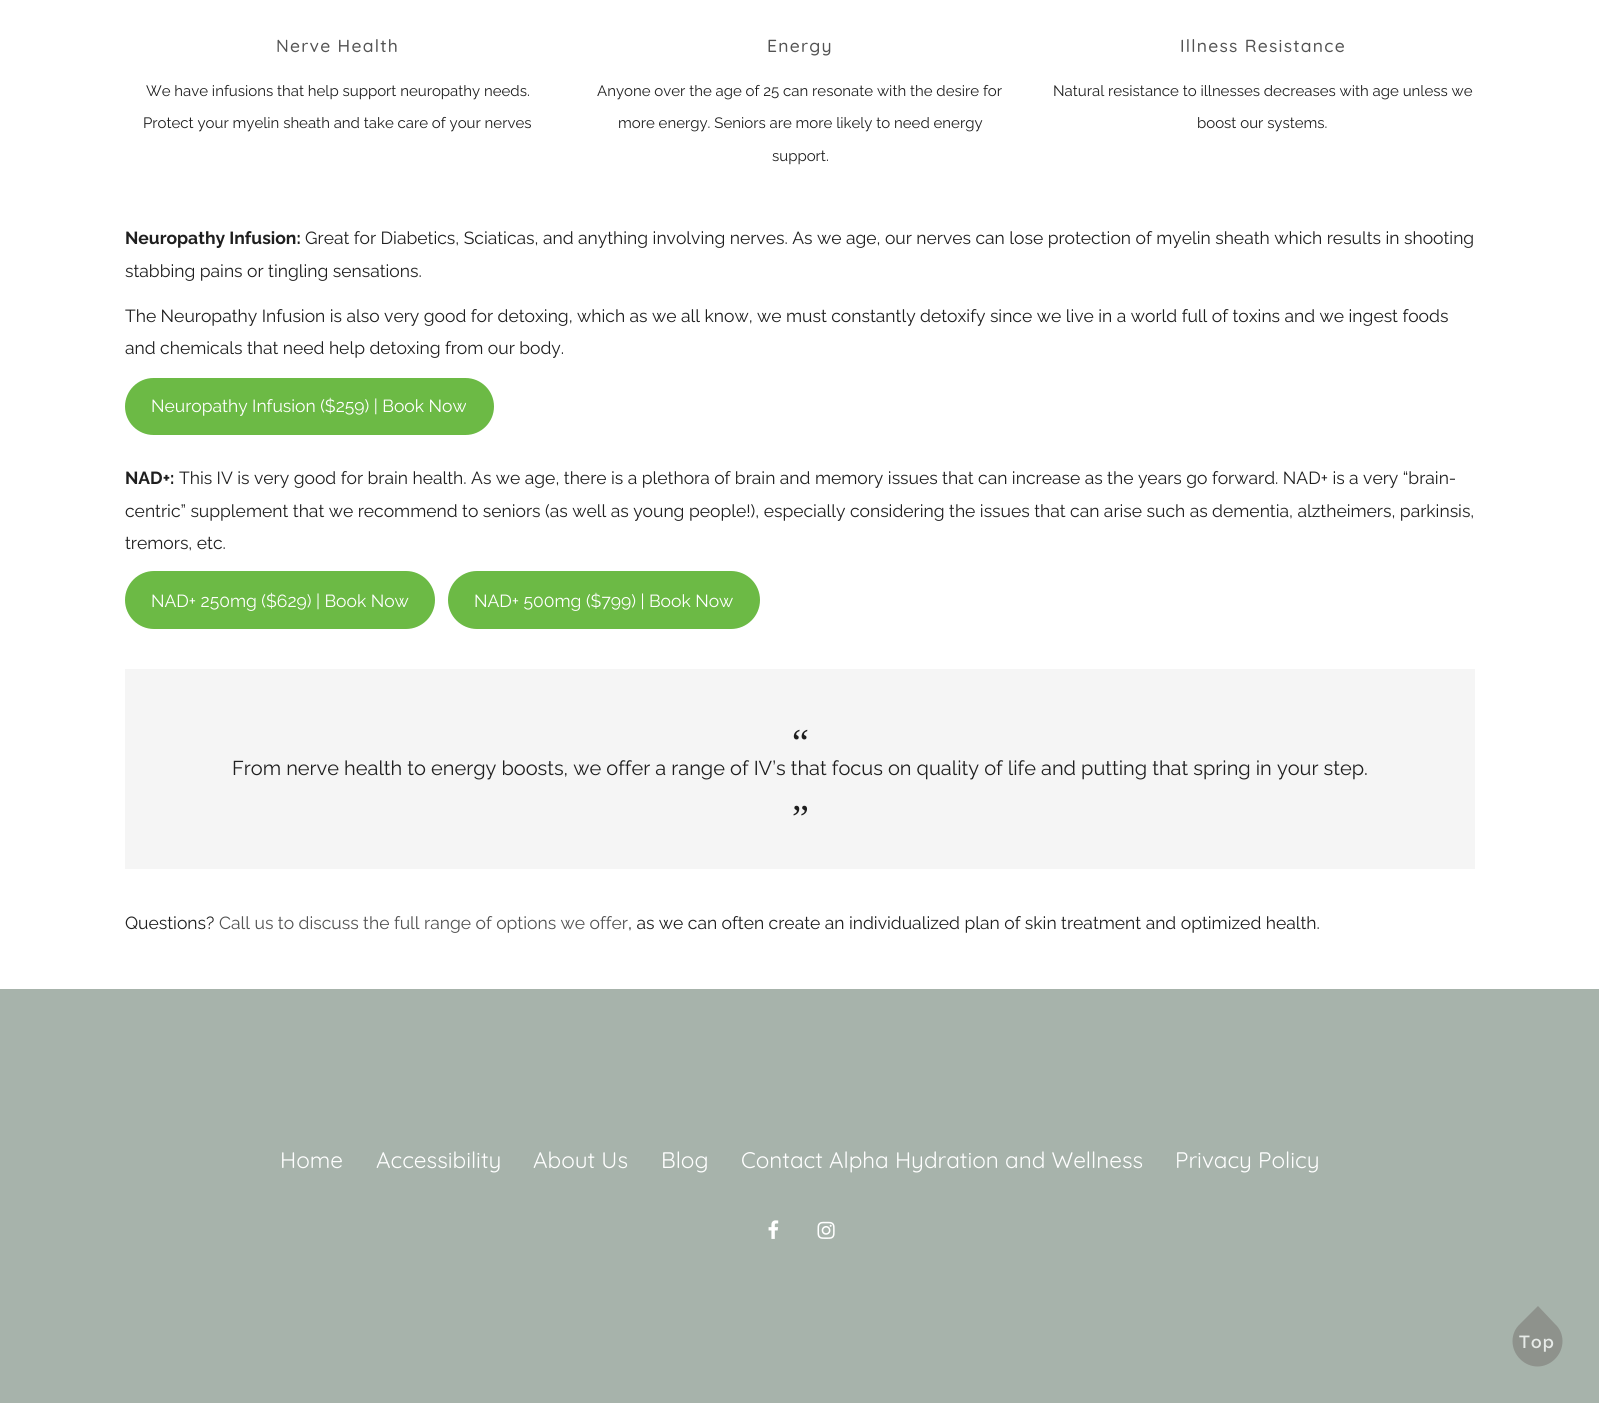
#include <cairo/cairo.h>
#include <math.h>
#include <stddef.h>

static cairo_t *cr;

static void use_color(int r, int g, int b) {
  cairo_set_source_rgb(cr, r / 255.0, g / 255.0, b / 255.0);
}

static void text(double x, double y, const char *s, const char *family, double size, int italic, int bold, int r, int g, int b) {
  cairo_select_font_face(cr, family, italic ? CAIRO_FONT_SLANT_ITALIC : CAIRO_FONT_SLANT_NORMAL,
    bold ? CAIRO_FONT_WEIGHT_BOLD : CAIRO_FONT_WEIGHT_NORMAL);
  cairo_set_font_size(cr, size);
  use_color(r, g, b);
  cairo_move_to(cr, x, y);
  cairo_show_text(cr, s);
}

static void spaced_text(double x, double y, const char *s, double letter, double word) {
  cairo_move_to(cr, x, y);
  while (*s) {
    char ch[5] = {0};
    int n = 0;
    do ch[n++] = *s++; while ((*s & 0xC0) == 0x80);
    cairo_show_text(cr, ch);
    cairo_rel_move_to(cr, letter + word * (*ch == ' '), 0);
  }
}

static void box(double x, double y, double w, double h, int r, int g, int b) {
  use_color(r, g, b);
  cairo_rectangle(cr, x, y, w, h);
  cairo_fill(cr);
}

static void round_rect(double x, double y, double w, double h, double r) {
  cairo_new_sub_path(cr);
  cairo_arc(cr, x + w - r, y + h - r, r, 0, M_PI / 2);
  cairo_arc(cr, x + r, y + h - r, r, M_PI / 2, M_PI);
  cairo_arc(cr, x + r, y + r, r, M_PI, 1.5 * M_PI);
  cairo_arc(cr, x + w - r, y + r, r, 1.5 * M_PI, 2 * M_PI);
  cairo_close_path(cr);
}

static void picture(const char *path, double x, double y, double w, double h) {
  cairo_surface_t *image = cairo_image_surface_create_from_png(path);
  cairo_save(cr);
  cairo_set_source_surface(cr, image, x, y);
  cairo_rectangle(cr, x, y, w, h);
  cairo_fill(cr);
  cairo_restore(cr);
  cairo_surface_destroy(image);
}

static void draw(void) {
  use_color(255, 255, 255);
  cairo_paint(cr);
  use_color(108, 186, 69);
  round_rect(125, 378, 369, 57, 28.5);
  cairo_fill(cr);
  round_rect(125, 571, 310, 58, 29);
  cairo_fill(cr);
  round_rect(448, 571, 312, 58, 29);
  cairo_fill(cr);
  box(125, 669, 1350, 200, 245, 245, 245);
  box(0, 989, 1599, 414, 167, 179, 171);
  picture("img_01.png", 768, 1220, 11, 19);
  picture("img_02.png", 817, 1221, 18, 18);
  use_color(142, 146, 140);
  cairo_new_path(cr);
  cairo_move_to(cr, 1520, 1324);
  cairo_line_to(cr, 1538, 1306);
  cairo_line_to(cr, 1555, 1324);
  cairo_curve_to(cr, 1565, 1333, 1565, 1349, 1555, 1359);
  cairo_curve_to(cr, 1545, 1369, 1530, 1369, 1520, 1359);
  cairo_curve_to(cr, 1510, 1349, 1510, 1333, 1520, 1324);
  cairo_close_path(cr);
  cairo_fill(cr);
  cairo_select_font_face(cr, "Quicksand Medium", CAIRO_FONT_SLANT_NORMAL, CAIRO_FONT_WEIGHT_NORMAL);
  cairo_set_font_size(cr, 17.5);
  use_color(83, 83, 83);
  spaced_text(276, 52, "Nerve Health", 1.25, 0);
  text(146, 96, "We have infusions that help support neuropathy needs.", "Raleway", 15, 0, 0, 31, 31, 31);
  text(143, 128, "Protect your myelin sheath and take care of your nerves", "Raleway", 15, 0, 0, 31, 31, 31);
  cairo_select_font_face(cr, "Quicksand Medium", CAIRO_FONT_SLANT_NORMAL, CAIRO_FONT_WEIGHT_NORMAL);
  cairo_set_font_size(cr, 17.5);
  use_color(83, 83, 83);
  spaced_text(767, 52, "Energy", 1.25, 0);
  text(597, 96, "Anyone over the age of 25 can resonate with the desire for", "Raleway", 15, 0, 0, 31, 31, 31);
  text(618, 128, "more energy. Seniors are more likely to need energy", "Raleway", 15, 0, 0, 31, 31, 31);
  text(772, 161, "support.", "Raleway", 15, 0, 0, 31, 31, 31);
  cairo_select_font_face(cr, "Quicksand Medium", CAIRO_FONT_SLANT_NORMAL, CAIRO_FONT_WEIGHT_NORMAL);
  cairo_set_font_size(cr, 17.5);
  use_color(83, 83, 83);
  spaced_text(1180, 52, "Illness Resistance", 1.25, 0);
  text(1053, 96, "Natural resistance to illnesses decreases with age unless we", "Raleway", 15, 0, 0, 31, 31, 31);
  text(1197, 128, "boost our systems.", "Raleway", 15, 0, 0, 31, 31, 31);
  text(125, 244, "Neuropathy Infusion:", "Raleway", 17.5, 0, 1, 31, 31, 31);
  text(305, 244, "Great for Diabetics, Sciaticas, and anything involving nerves. As we age, our nerves can lose protection of myelin sheath which results in shooting", "Raleway", 17.5, 0, 0, 31, 31, 31);
  text(125, 277, "stabbing pains or tingling sensations.", "Raleway", 17.5, 0, 0, 31, 31, 31);
  text(125, 322, "The Neuropathy Infusion is also very good for detoxing, which as we all know, we must constantly detoxify since we live in a world full of toxins and we ingest foods", "Raleway", 17.5, 0, 0, 31, 31, 31);
  text(125, 354, "and chemicals that need help detoxing from our body.", "Raleway", 17.5, 0, 0, 31, 31, 31);
  text(151, 412, "Neuropathy Infusion ($259) | Book Now", "Raleway", 17.5, 0, 0, 255, 255, 255);
  text(125, 484, "NAD+:", "Raleway", 17.5, 0, 1, 31, 31, 31);
  text(179, 484, "This IV is very good for brain health. As we age, there is a plethora of brain and memory issues that can increase as the years go forward. NAD+ is a very “brain-", "Raleway", 17.5, 0, 0, 31, 31, 31);
  text(125, 517, "centric” supplement that we recommend to seniors (as well as young people!), especially considering the issues that can arise such as dementia, alztheimers, parkinsis,", "Raleway", 17.5, 0, 0, 31, 31, 31);
  text(125, 549, "tremors, etc.", "Raleway", 17.5, 0, 0, 31, 31, 31);
  text(151, 607, "NAD+ 250mg ($629) | Book Now", "Raleway", 17.5, 0, 0, 255, 255, 255);
  text(474, 607, "NAD+ 500mg ($799) | Book Now", "Raleway", 17.5, 0, 0, 255, 255, 255);
  text(792, 755, "“", "Liberation Serif", 38, 0, 0, 31, 31, 31);
  text(232, 775, "From nerve health to energy boosts, we offer a range of IV’s that focus on quality of life and putting that spring in your step.", "Raleway", 20, 0, 0, 31, 31, 31);
  text(792, 831, "”", "Liberation Serif", 38, 0, 0, 31, 31, 31);
  text(125, 929, "Questions?", "Raleway", 17.5, 0, 0, 31, 31, 31);
  text(219, 929, "Call us to discuss the full range of options we offer", "Raleway", 17.5, 0, 0, 83, 83, 83);
  text(628, 929, ", as we can often create an individualized plan of skin treatment and optimized health.", "Raleway", 17.5, 0, 0, 31, 31, 31);
  text(280, 1168, "Home", "Quicksand Light", 22.5, 0, 0, 255, 255, 255);
  text(376, 1168, "Accessibility", "Quicksand Light", 22.5, 0, 0, 255, 255, 255);
  text(533, 1168, "About Us", "Quicksand Light", 22.5, 0, 0, 255, 255, 255);
  text(661, 1168, "Blog", "Quicksand Light", 22.5, 0, 0, 255, 255, 255);
  text(741, 1168, "Contact Alpha Hydration and Wellness", "Quicksand Light", 22.5, 0, 0, 255, 255, 255);
  text(1175, 1168, "Privacy Policy", "Quicksand Light", 22.5, 0, 0, 255, 255, 255);
  cairo_select_font_face(cr, "Raleway SemiBold", CAIRO_FONT_SLANT_NORMAL, CAIRO_FONT_WEIGHT_NORMAL);
  cairo_set_font_size(cr, 17.5);
  use_color(231, 235, 232);
  spaced_text(1519, 1348, "Top", 1.25, 0);
}

int main(void) {
  cairo_surface_t *surface = cairo_image_surface_create(CAIRO_FORMAT_RGB24, 1599, 1403);
  cr = cairo_create(surface);
  cairo_font_options_t *options = cairo_font_options_create();
  cairo_font_options_set_hint_metrics(options, CAIRO_HINT_METRICS_OFF);
  cairo_font_options_set_hint_style(options, CAIRO_HINT_STYLE_NONE);
  cairo_set_font_options(cr, options);
  cairo_set_miter_limit(cr, 4);
  draw();
  cairo_surface_write_to_png(surface, "out.png");
  cairo_font_options_destroy(options);
  cairo_destroy(cr);
  cairo_surface_destroy(surface);
  return 0;
}
